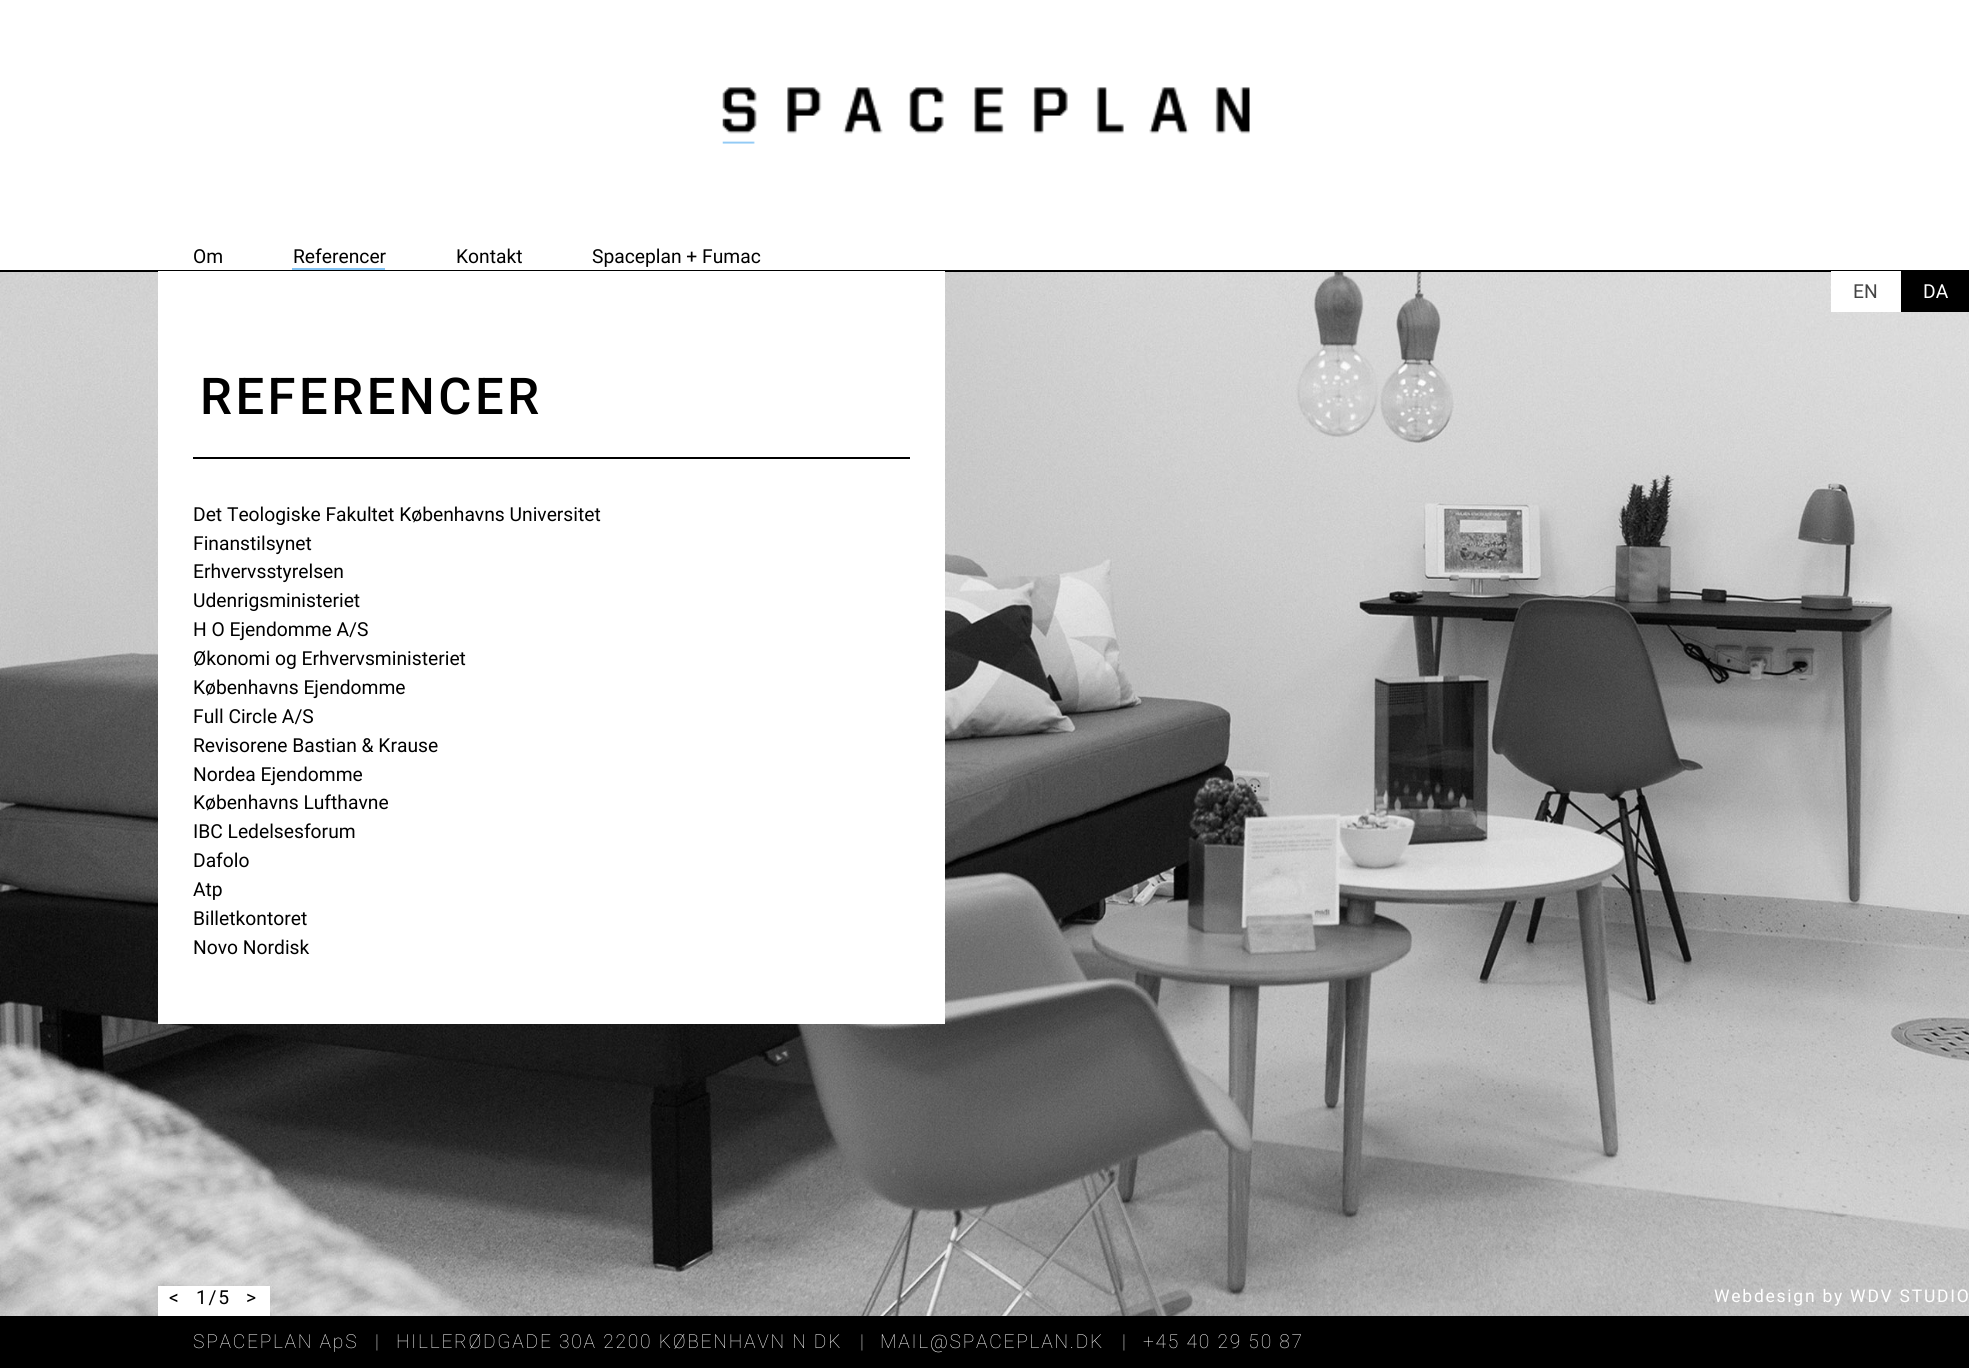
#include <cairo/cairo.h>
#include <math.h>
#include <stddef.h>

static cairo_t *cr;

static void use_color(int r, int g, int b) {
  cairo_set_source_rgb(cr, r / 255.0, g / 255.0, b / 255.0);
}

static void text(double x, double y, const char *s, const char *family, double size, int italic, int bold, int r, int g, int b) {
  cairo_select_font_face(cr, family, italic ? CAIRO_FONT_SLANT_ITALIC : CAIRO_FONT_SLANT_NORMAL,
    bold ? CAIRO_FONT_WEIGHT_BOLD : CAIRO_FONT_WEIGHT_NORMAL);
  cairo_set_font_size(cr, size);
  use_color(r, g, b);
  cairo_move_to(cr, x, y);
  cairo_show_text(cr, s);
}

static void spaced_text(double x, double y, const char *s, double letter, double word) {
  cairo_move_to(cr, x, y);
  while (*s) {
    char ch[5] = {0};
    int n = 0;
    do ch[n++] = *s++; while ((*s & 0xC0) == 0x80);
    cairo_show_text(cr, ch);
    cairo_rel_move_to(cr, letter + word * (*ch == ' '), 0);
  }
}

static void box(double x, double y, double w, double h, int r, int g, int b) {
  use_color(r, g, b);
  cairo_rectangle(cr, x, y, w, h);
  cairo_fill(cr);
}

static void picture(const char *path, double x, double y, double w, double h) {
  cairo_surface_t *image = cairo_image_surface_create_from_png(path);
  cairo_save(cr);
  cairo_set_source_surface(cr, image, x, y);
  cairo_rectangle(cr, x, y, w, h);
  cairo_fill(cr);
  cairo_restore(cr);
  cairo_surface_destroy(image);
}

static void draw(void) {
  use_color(255, 255, 255);
  cairo_paint(cr);
  picture("img_01.png", 722, 87, 528, 57);
  box(0, 270, 1969, 2, 0, 0, 0);
  box(292, 268, 93, 2, 131, 195, 244);
  picture("img_02.png", 0, 272, 1969, 1044);
  box(1831, 271, 70, 41, 255, 255, 255);
  box(1901, 272, 68, 40, 0, 0, 0);
  box(158, 271, 787, 753, 255, 255, 255);
  box(193, 457, 717, 2, 0, 0, 0);
  box(0, 1316, 1969, 52, 0, 0, 0);
  box(158, 1286, 112, 30, 255, 255, 255);
  text(193, 263, "Om", "Roboto", 19.25, 0, 0, 0, 0, 0);
  text(293, 263, "Referencer", "Roboto", 19.25, 0, 0, 0, 0, 0);
  text(456, 263, "Kontakt", "Roboto", 19.25, 0, 0, 0, 0, 0);
  text(592, 263, "Spaceplan + Fumac", "Roboto", 19.25, 0, 0, 0, 0, 0);
  text(1853, 298, "EN", "Roboto", 19.25, 0, 0, 68, 68, 68);
  text(1923, 298, "DA", "Roboto", 19.25, 0, 0, 255, 255, 255);
  cairo_select_font_face(cr, "Roboto Medium", CAIRO_FONT_SLANT_NORMAL, CAIRO_FONT_WEIGHT_NORMAL);
  cairo_set_font_size(cr, 50.75);
  use_color(0, 0, 0);
  spaced_text(200, 414, "REFERENCER", 3.5, 0);
  text(193, 521, "Det Teologiske Fakultet Københavns Universitet", "Roboto", 19.25, 0, 0, 0, 0, 0);
  text(193, 550, "Finanstilsynet", "Roboto", 19.25, 0, 0, 0, 0, 0);
  text(193, 578, "Erhvervsstyrelsen", "Roboto", 19.25, 0, 0, 0, 0, 0);
  text(193, 607, "Udenrigsministeriet", "Roboto", 19.25, 0, 0, 0, 0, 0);
  text(193, 636, "H O Ejendomme A/S", "Roboto", 19.25, 0, 0, 0, 0, 0);
  text(193, 665, "Økonomi og Erhvervsministeriet", "Roboto", 19.25, 0, 0, 0, 0, 0);
  text(193, 694, "Københavns Ejendomme", "Roboto", 19.25, 0, 0, 0, 0, 0);
  text(193, 723, "Full Circle A/S", "Roboto", 19.25, 0, 0, 0, 0, 0);
  text(193, 752, "Revisorene Bastian & Krause", "Roboto", 19.25, 0, 0, 0, 0, 0);
  text(193, 781, "Nordea Ejendomme", "Roboto", 19.25, 0, 0, 0, 0, 0);
  text(193, 809, "Københavns Lufthavne", "Roboto", 19.25, 0, 0, 0, 0, 0);
  text(193, 838, "IBC Ledelsesforum", "Roboto", 19.25, 0, 0, 0, 0, 0);
  text(193, 867, "Dafolo", "Roboto", 19.25, 0, 0, 0, 0, 0);
  text(193, 896, "Atp", "Roboto", 19.25, 0, 0, 0, 0, 0);
  text(193, 925, "Billetkontoret", "Roboto", 19.25, 0, 0, 0, 0, 0);
  text(193, 954, "Novo Nordisk", "Roboto", 19.25, 0, 0, 0, 0, 0);
  spaced_text(169, 1304, "<", 1.75, 0);
  spaced_text(196, 1304, "1/5", 1.75, 0);
  spaced_text(246, 1304, ">", 1.75, 0);
  cairo_set_font_size(cr, 17.5);
  use_color(255, 255, 255);
  spaced_text(1714, 1302, "Webdesign by WDV STUDIO", 1.75, 0);
  cairo_select_font_face(cr, "Roboto Thin", CAIRO_FONT_SLANT_NORMAL, CAIRO_FONT_WEIGHT_NORMAL);
  cairo_set_font_size(cr, 19.25);
  spaced_text(193, 1348, "SPACEPLAN ApS", 1.75, 0);
  spaced_text(375, 1348, "|", 1.75, 0);
  spaced_text(396, 1348, "HILLERØDGADE 30A 2200 KØBENHAVN N DK", 1.75, 0);
  spaced_text(860, 1348, "|", 1.75, 0);
  spaced_text(880, 1348, "MAIL@SPACEPLAN.DK", 1.75, 0);
  spaced_text(1122, 1348, "|", 1.75, 0);
  spaced_text(1143, 1348, "+45 40 29 50 87", 1.75, 0);
}

int main(void) {
  cairo_surface_t *surface = cairo_image_surface_create(CAIRO_FORMAT_RGB24, 1969, 1368);
  cr = cairo_create(surface);
  cairo_font_options_t *options = cairo_font_options_create();
  cairo_font_options_set_hint_metrics(options, CAIRO_HINT_METRICS_OFF);
  cairo_font_options_set_hint_style(options, CAIRO_HINT_STYLE_NONE);
  cairo_set_font_options(cr, options);
  cairo_set_miter_limit(cr, 4);
  draw();
  cairo_surface_write_to_png(surface, "out.png");
  cairo_font_options_destroy(options);
  cairo_destroy(cr);
  cairo_surface_destroy(surface);
  return 0;
}
